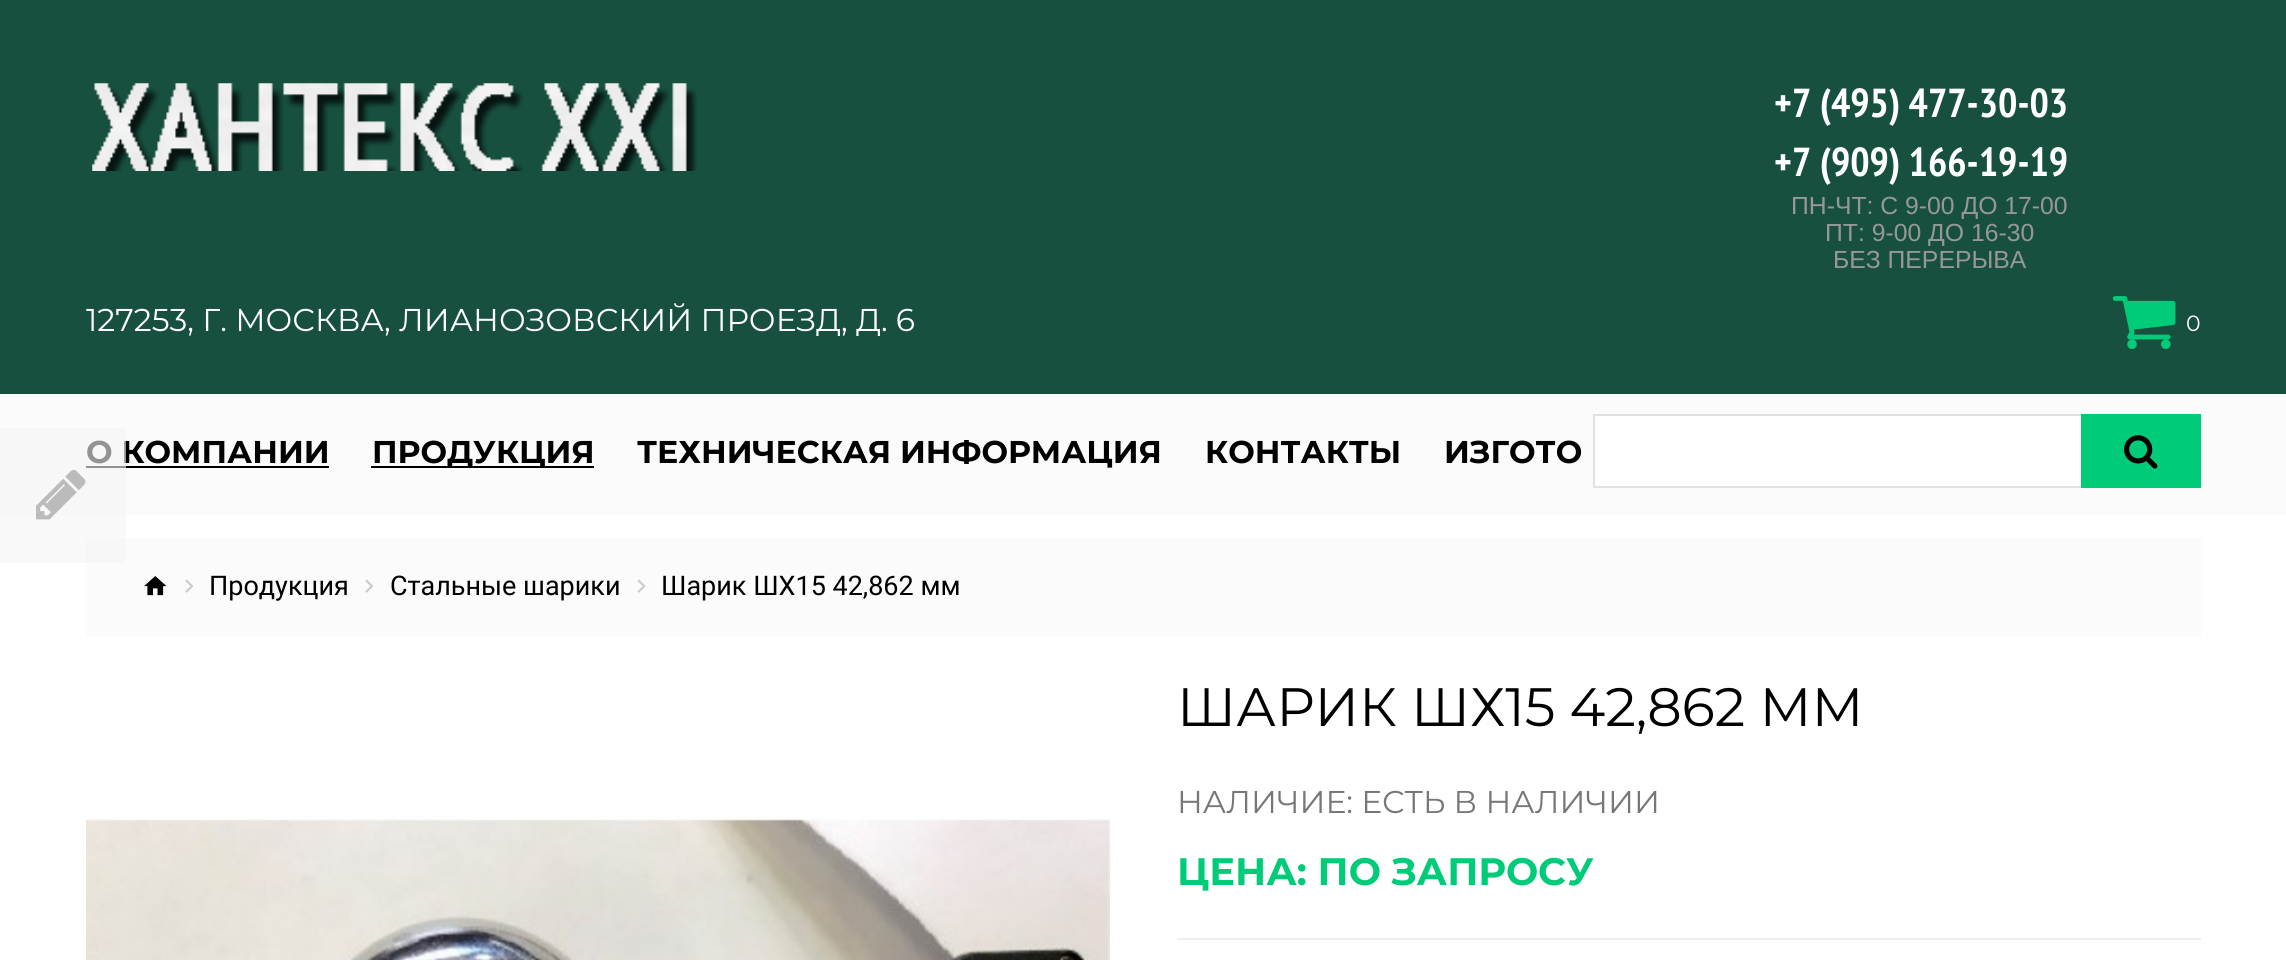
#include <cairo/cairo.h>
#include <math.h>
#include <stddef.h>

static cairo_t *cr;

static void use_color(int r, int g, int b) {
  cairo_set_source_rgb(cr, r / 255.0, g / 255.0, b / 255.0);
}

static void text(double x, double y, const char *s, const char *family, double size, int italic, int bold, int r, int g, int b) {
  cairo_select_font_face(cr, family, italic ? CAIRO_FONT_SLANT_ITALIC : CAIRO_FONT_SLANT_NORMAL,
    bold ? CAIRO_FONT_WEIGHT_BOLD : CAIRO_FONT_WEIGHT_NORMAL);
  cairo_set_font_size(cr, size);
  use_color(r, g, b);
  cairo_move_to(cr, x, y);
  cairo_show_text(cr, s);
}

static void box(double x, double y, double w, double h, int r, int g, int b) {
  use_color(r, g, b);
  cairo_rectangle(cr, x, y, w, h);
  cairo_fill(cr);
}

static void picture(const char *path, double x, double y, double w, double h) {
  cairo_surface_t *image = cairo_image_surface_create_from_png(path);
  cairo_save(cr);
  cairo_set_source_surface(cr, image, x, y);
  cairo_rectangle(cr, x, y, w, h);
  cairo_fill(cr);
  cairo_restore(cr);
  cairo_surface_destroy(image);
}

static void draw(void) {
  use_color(255, 255, 255);
  cairo_paint(cr);
  box(0, 0, 2286, 394, 24, 80, 64);
  picture("img_01.png", 92, 83, 605, 88);
  picture("img_02.png", 2112, 296, 64, 54);
  box(0, 394, 2286, 121, 251, 251, 251);
  box(86, 466, 243, 2, 0, 0, 0);
  box(371, 466, 223, 2, 0, 0, 0);
  box(1595, 416, 486, 70, 255, 255, 255);
  box(1593, 414, 488, 2, 225, 225, 225);
  box(1593, 486, 488, 2, 225, 225, 225);
  box(1593, 414, 2, 74, 225, 225, 225);
  box(2081, 414, 120, 74, 0, 203, 121);
  picture("img_03.png", 2124, 435, 34, 34);
  box(86, 538, 2115, 99, 251, 251, 251);
  picture("img_04.png", 144, 576, 23, 20);
  picture("img_05.png", 185, 579, 9, 14);
  picture("img_05.png", 365, 579, 9, 14);
  picture("img_06.png", 637, 579, 9, 14);
  picture("img_08.png", 86, 816, 1024, 144);
  box(1177, 938, 1024, 2, 238, 238, 238);
  text(1774, 117, "+7 (495) 477-30-03", "PT Sans Narrow", 40.5, 0, 1, 255, 255, 255);
  text(1774, 176, "+7 (909) 166-19-19", "PT Sans Narrow", 40.5, 0, 1, 255, 255, 255);
  text(1791, 214, "ПН-ЧТ: C 9-00 ДО 17-00", "Liberation Sans", 24.75, 0, 0, 151, 151, 151);
  text(1825, 241, "ПТ: 9-00 ДО 16-30", "Liberation Sans", 24.75, 0, 0, 151, 151, 151);
  text(1833, 268, "БЕЗ ПЕРЕРЫВА", "Liberation Sans", 24.75, 0, 0, 151, 151, 151);
  text(86, 331, "127253, Г. МОСКВА, ЛИАНОЗОВСКИЙ ПРОЕЗД, Д. 6", "Montserrat", 31.5, 0, 0, 255, 255, 255);
  text(2186, 331, "0", "Montserrat", 22, 0, 0, 255, 255, 255);
  text(86, 463, "О КОМПАНИИ", "Montserrat", 31.5, 0, 1, 0, 0, 0);
  text(372, 463, "ПРОДУКЦИЯ", "Montserrat", 31.5, 0, 1, 0, 0, 0);
  text(637, 463, "ТЕХНИЧЕСКАЯ ИНФОРМАЦИЯ", "Montserrat", 31.5, 0, 1, 0, 0, 0);
  text(1205, 463, "КОНТАКТЫ", "Montserrat", 31.5, 0, 1, 0, 0, 0);
  text(1444, 463, "ИЗГОТО", "Montserrat", 31.5, 0, 1, 0, 0, 0);
  text(209, 595, "Продукция", "Roboto", 27, 0, 0, 0, 0, 0);
  text(390, 595, "Стальные шарики", "Roboto", 27, 0, 0, 0, 0, 0);
  text(661, 595, "Шарик ШХ15 42,862 мм", "Roboto", 27, 0, 0, 0, 0, 0);
  cairo_set_source_rgba(cr, 0.961, 0.961, 0.961, 0.6);
  cairo_rectangle(cr, 0, 428, 126, 135);
  cairo_fill(cr);
  picture("img_07.png", 36, 470, 50, 50);
  text(1177, 726, "ШАРИК ШХ15 42,862 ММ", "Montserrat", 54, 0, 0, 0, 0, 0);
  text(1177, 813, "НАЛИЧИЕ: ЕСТЬ В НАЛИЧИИ", "Montserrat", 31.5, 0, 0, 119, 119, 119);
  text(1177, 885, "ЦЕНА: ПО ЗАПРОСУ", "Montserrat", 38.25, 0, 1, 0, 203, 121);
}

int main(void) {
  cairo_surface_t *surface = cairo_image_surface_create(CAIRO_FORMAT_RGB24, 2286, 960);
  cr = cairo_create(surface);
  cairo_font_options_t *options = cairo_font_options_create();
  cairo_font_options_set_hint_metrics(options, CAIRO_HINT_METRICS_OFF);
  cairo_font_options_set_hint_style(options, CAIRO_HINT_STYLE_NONE);
  cairo_set_font_options(cr, options);
  cairo_set_miter_limit(cr, 4);
  draw();
  cairo_surface_write_to_png(surface, "out.png");
  cairo_font_options_destroy(options);
  cairo_destroy(cr);
  cairo_surface_destroy(surface);
  return 0;
}
